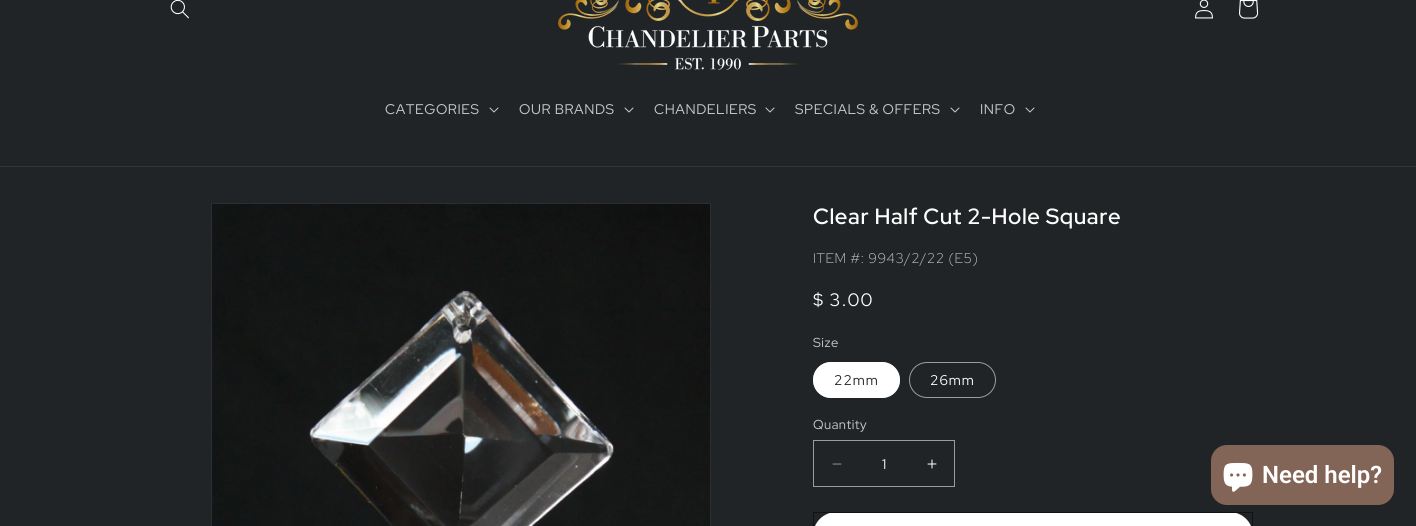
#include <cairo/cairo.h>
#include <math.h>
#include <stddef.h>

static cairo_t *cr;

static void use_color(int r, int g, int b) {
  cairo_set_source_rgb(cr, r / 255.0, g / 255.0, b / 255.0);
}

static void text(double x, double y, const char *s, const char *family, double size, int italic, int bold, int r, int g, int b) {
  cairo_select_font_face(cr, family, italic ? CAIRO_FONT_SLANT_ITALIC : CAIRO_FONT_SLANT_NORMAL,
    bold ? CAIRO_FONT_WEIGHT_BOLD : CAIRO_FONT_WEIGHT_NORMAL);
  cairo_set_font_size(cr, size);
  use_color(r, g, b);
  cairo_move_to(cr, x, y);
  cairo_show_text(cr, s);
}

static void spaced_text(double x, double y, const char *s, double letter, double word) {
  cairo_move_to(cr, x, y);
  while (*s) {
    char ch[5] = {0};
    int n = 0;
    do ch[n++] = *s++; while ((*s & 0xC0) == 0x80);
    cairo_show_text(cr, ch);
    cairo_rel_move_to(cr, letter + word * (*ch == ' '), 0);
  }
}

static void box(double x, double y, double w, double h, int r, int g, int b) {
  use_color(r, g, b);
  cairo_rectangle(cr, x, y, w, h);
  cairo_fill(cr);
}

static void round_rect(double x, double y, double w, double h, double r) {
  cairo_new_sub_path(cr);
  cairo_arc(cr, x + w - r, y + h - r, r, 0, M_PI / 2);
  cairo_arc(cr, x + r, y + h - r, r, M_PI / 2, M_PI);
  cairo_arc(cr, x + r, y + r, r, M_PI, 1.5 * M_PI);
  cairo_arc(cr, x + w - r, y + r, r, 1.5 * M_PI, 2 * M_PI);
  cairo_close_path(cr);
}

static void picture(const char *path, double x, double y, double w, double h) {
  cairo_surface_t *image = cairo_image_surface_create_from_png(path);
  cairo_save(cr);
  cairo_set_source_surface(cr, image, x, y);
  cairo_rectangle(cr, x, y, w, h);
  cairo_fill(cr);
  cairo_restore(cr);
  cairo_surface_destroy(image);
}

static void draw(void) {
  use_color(33, 36, 39);
  cairo_paint(cr);
  box(0, 166, 1416, 1, 51, 54, 56);
  picture("img_01.png", 170, 0, 19, 19);
  picture("img_02.png", 558, 0, 300, 70);
  picture("img_03.png", 1195, 0, 18, 19);
  picture("img_04.png", 1239, 0, 20, 19);
  picture("img_05.png", 489, 107, 10, 6);
  picture("img_05.png", 624, 107, 10, 6);
  picture("img_05.png", 765, 107, 10, 6);
  picture("img_05.png", 950, 107, 10, 6);
  picture("img_05.png", 1025, 107, 10, 6);
  cairo_rectangle(cr, 211.5, 203.5, 499, 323);
  use_color(44, 47, 50);
  cairo_set_line_width(cr, 1);
  cairo_stroke(cr);
  picture("img_06.png", 212, 204, 498, 322);
  use_color(255, 255, 255);
  round_rect(813, 362, 87, 36, 18);
  cairo_fill(cr);
  round_rect(813.5, 362.5, 86, 35, 17.5);
  cairo_set_source_rgba(cr, 1, 1, 1, 0.55);
  cairo_stroke(cr);
  round_rect(909.5, 362.5, 86, 35, 17.5);
  use_color(155, 156, 158);
  cairo_stroke(cr);
  picture("img_07.png", 832, 463, 10, 2);
  picture("img_08.png", 927, 459, 10, 10);
  cairo_rectangle(cr, 813.5, 440.5, 141, 46);
  cairo_stroke(cr);
  use_color(255, 255, 255);
  round_rect(813, 512, 440, 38, 23.5);
  cairo_fill(cr);
  cairo_rectangle(cr, 813.5, 512.5, 439, 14);
  use_color(18, 18, 18);
  cairo_stroke(cr);
  use_color(131, 101, 88);
  round_rect(1211, 445, 183, 60, 16);
  cairo_fill(cr);
  picture("img_09.png", 1223, 463, 30, 29);
  cairo_select_font_face(cr, "Red Hat Display", CAIRO_FONT_SLANT_NORMAL, CAIRO_FONT_WEIGHT_NORMAL);
  cairo_set_font_size(cr, 14);
  use_color(200, 200, 201);
  spaced_text(385, 114, "CATEGORIES", 0.6, 0);
  spaced_text(519, 114, "OUR BRANDS", 0.6, 0);
  spaced_text(654, 114, "CHANDELIERS", 0.6, 0);
  spaced_text(795, 114, "SPECIALS & OFFERS", 0.6, 0);
  spaced_text(980, 114, "INFO", 0.6, 0);
  cairo_select_font_face(cr, "Red Hat Display SemiBold", CAIRO_FONT_SLANT_NORMAL, CAIRO_FONT_WEIGHT_NORMAL);
  cairo_set_font_size(cr, 22);
  use_color(255, 255, 255);
  spaced_text(813, 224, "Clear Half Cut 2-Hole Square", 0.6, 0);
  cairo_select_font_face(cr, "Red Hat Display Light", CAIRO_FONT_SLANT_NORMAL, CAIRO_FONT_WEIGHT_NORMAL);
  cairo_set_font_size(cr, 14);
  use_color(200, 200, 201);
  spaced_text(813, 263, "ITEM #: 9943/2/22 (E5)", 0.6, 0);
  cairo_select_font_face(cr, "Red Hat Display", CAIRO_FONT_SLANT_NORMAL, CAIRO_FONT_WEIGHT_NORMAL);
  cairo_set_font_size(cr, 18);
  use_color(255, 255, 255);
  spaced_text(813, 306, "$ 3.00", 1.25, 0);
  cairo_set_font_size(cr, 13);
  use_color(200, 200, 201);
  spaced_text(813, 347, "Size", 0.5, 0);
  cairo_set_font_size(cr, 14);
  use_color(33, 36, 39);
  spaced_text(834, 385, "22mm", 1, 0);
  use_color(255, 255, 255);
  spaced_text(930, 385, "26mm", 1, 0);
  cairo_set_font_size(cr, 13);
  use_color(200, 200, 201);
  spaced_text(813, 429, "Quantity", 0.5, 0);
  text(882, 469, "1", "Red Hat Display Medium", 14, 0, 0, 222, 222, 223);
  text(1262, 483, "Need help?", "Roboto SemiBold", 24, 0, 0, 255, 255, 255);
}

int main(void) {
  cairo_surface_t *surface = cairo_image_surface_create(CAIRO_FORMAT_RGB24, 1416, 526);
  cr = cairo_create(surface);
  cairo_font_options_t *options = cairo_font_options_create();
  cairo_font_options_set_hint_metrics(options, CAIRO_HINT_METRICS_OFF);
  cairo_font_options_set_hint_style(options, CAIRO_HINT_STYLE_NONE);
  cairo_set_font_options(cr, options);
  cairo_set_miter_limit(cr, 4);
  draw();
  cairo_surface_write_to_png(surface, "out.png");
  cairo_font_options_destroy(options);
  cairo_destroy(cr);
  cairo_surface_destroy(surface);
  return 0;
}
